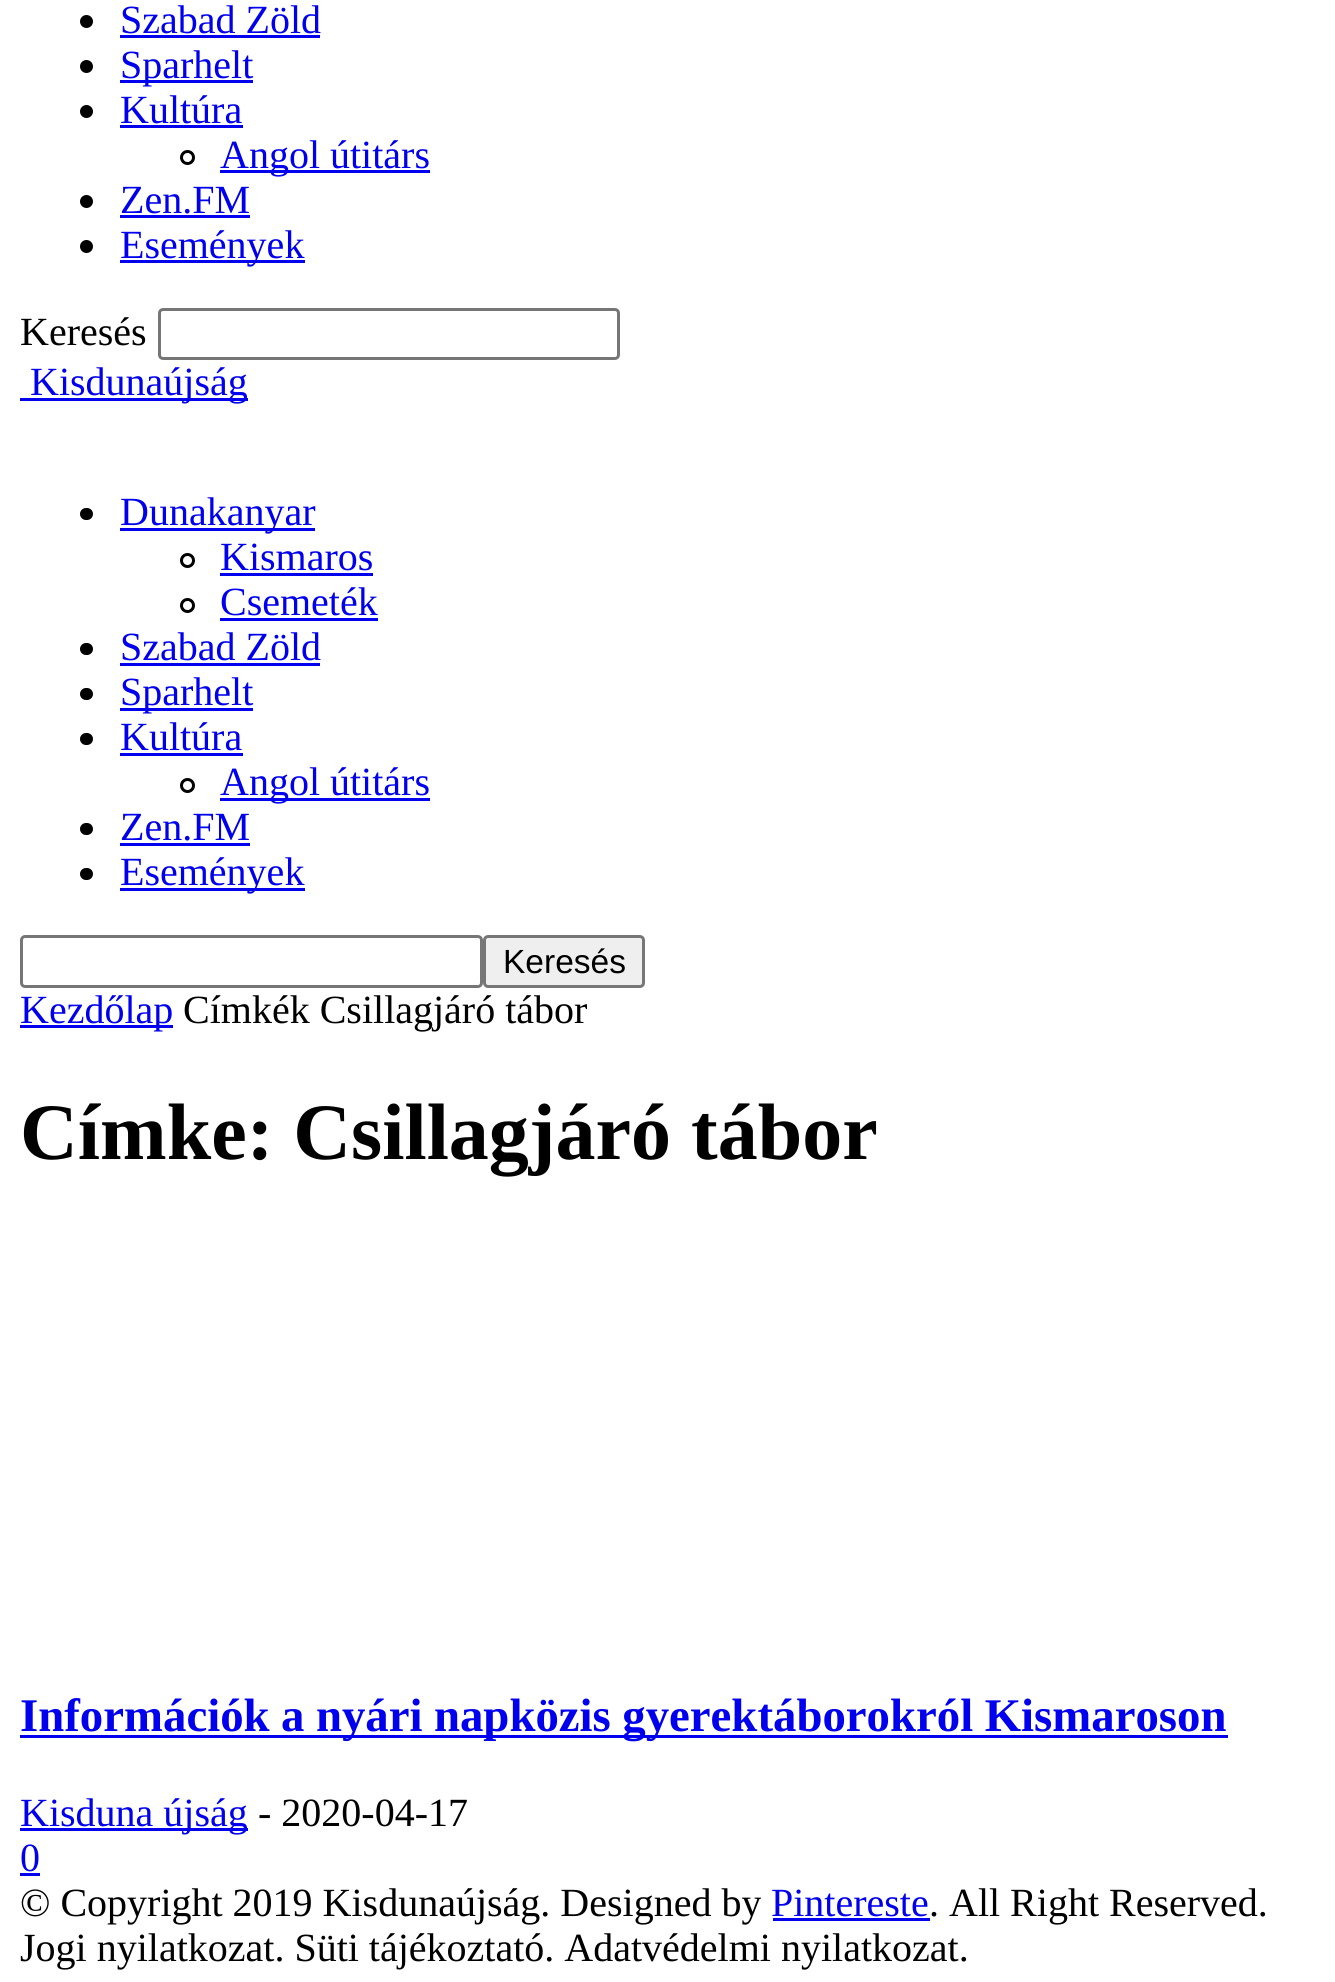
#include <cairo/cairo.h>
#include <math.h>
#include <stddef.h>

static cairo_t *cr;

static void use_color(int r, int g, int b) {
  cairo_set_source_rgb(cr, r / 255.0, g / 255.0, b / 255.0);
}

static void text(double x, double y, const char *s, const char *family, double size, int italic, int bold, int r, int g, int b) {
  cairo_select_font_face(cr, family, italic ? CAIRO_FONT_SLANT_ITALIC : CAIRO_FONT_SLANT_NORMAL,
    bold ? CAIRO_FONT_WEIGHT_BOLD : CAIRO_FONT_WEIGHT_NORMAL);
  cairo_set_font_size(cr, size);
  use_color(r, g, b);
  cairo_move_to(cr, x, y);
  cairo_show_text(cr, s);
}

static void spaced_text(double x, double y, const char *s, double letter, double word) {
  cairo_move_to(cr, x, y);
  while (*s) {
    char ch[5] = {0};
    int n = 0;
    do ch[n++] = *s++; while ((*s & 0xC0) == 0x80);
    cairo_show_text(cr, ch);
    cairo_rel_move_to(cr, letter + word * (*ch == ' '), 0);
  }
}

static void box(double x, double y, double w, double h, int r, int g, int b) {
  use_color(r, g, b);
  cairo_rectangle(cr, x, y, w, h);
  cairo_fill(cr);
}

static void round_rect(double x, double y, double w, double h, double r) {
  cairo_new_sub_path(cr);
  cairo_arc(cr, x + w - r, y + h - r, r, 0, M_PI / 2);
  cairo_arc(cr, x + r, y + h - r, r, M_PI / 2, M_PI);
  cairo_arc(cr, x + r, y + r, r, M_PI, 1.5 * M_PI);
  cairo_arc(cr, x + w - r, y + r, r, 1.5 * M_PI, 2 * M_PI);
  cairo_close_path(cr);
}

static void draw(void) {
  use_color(255, 255, 255);
  cairo_paint(cr);
  use_color(0, 0, 0);
  cairo_arc(cr, 86.5, 21.5, 6.5, 0, 2 * M_PI);
  cairo_fill(cr);
  box(120, 35, 200, 3, 0, 0, 238);
  use_color(0, 0, 0);
  cairo_arc(cr, 86.5, 66.5, 6.5, 0, 2 * M_PI);
  cairo_fill(cr);
  box(120, 80, 133, 3, 0, 0, 238);
  use_color(0, 0, 0);
  cairo_arc(cr, 86.5, 111.5, 6.5, 0, 2 * M_PI);
  cairo_fill(cr);
  box(120, 125, 123, 3, 0, 0, 238);
  cairo_arc(cr, 187.5, 157.5, 6, 0, 2 * M_PI);
  use_color(0, 0, 0);
  cairo_set_line_width(cr, 3);
  cairo_stroke(cr);
  box(220, 170, 210, 3, 0, 0, 238);
  use_color(0, 0, 0);
  cairo_arc(cr, 86.5, 201.5, 6.5, 0, 2 * M_PI);
  cairo_fill(cr);
  box(120, 215, 130, 3, 0, 0, 238);
  use_color(0, 0, 0);
  cairo_arc(cr, 86.5, 246.5, 6.5, 0, 2 * M_PI);
  cairo_fill(cr);
  box(120, 260, 185, 3, 0, 0, 238);
  round_rect(159.5, 309.5, 459, 49, 3.5);
  use_color(118, 118, 118);
  cairo_stroke(cr);
  box(20, 398, 228, 3, 0, 0, 238);
  use_color(0, 0, 0);
  round_rect(80, 508, 13, 12, 6);
  cairo_fill(cr);
  box(120, 528, 195, 3, 0, 0, 238);
  cairo_arc(cr, 187.5, 560.5, 6, 0, 2 * M_PI);
  use_color(0, 0, 0);
  cairo_stroke(cr);
  box(220, 573, 153, 3, 0, 0, 238);
  cairo_arc(cr, 187.5, 605.5, 6, 0, 2 * M_PI);
  use_color(0, 0, 0);
  cairo_stroke(cr);
  box(220, 618, 158, 3, 0, 0, 238);
  use_color(0, 0, 0);
  round_rect(80, 643, 13, 12, 6);
  cairo_fill(cr);
  box(120, 663, 200, 3, 0, 0, 238);
  use_color(0, 0, 0);
  round_rect(80, 688, 13, 12, 6);
  cairo_fill(cr);
  box(120, 708, 133, 3, 0, 0, 238);
  use_color(0, 0, 0);
  round_rect(80, 733, 13, 12, 6);
  cairo_fill(cr);
  box(120, 753, 123, 3, 0, 0, 238);
  cairo_arc(cr, 187.5, 785.5, 6, 0, 2 * M_PI);
  use_color(0, 0, 0);
  cairo_stroke(cr);
  box(220, 798, 210, 3, 0, 0, 238);
  use_color(0, 0, 0);
  round_rect(80, 823, 13, 12, 6);
  cairo_fill(cr);
  box(120, 843, 130, 3, 0, 0, 238);
  use_color(0, 0, 0);
  round_rect(80, 868, 13, 12, 6);
  cairo_fill(cr);
  box(120, 888, 185, 3, 0, 0, 238);
  round_rect(21.5, 936.5, 460, 50, 3.5);
  use_color(118, 118, 118);
  cairo_stroke(cr);
  use_color(239, 239, 239);
  round_rect(484.5, 936.5, 159, 50, 3.5);
  cairo_fill_preserve(cr);
  use_color(118, 118, 118);
  cairo_stroke(cr);
  box(20, 1025, 153, 3, 0, 0, 238);
  box(20, 1735, 1208, 3, 0, 0, 238);
  box(20, 1828, 228, 3, 0, 0, 238);
  box(20, 1873, 20, 3, 0, 0, 238);
  box(773, 1918, 157, 3, 0, 0, 238);
  text(120, 33, "Szabad Zöld", "Liberation Serif", 40, 0, 0, 0, 0, 238);
  text(120, 78, "Sparhelt", "Liberation Serif", 40, 0, 0, 0, 0, 238);
  text(120, 123, "Kultúra", "Liberation Serif", 40, 0, 0, 0, 0, 238);
  text(220, 168, "Angol útitárs", "Liberation Serif", 40, 0, 0, 0, 0, 238);
  text(120, 213, "Zen.FM", "Liberation Serif", 40, 0, 0, 0, 0, 238);
  text(120, 258, "Események", "Liberation Serif", 40, 0, 0, 0, 0, 238);
  text(20, 345, "Keresés", "Liberation Serif", 40, 0, 0, 0, 0, 0);
  text(30, 395, "Kisdunaújság", "Liberation Serif", 40, 0, 0, 0, 0, 238);
  text(120, 525, "Dunakanyar", "Liberation Serif", 40, 0, 0, 0, 0, 238);
  text(220, 570, "Kismaros", "Liberation Serif", 40, 0, 0, 0, 0, 238);
  text(220, 615, "Csemeték", "Liberation Serif", 40, 0, 0, 0, 0, 238);
  text(120, 660, "Szabad Zöld", "Liberation Serif", 40, 0, 0, 0, 0, 238);
  text(120, 705, "Sparhelt", "Liberation Serif", 40, 0, 0, 0, 0, 238);
  text(120, 750, "Kultúra", "Liberation Serif", 40, 0, 0, 0, 0, 238);
  text(220, 795, "Angol útitárs", "Liberation Serif", 40, 0, 0, 0, 0, 238);
  text(120, 840, "Zen.FM", "Liberation Serif", 40, 0, 0, 0, 0, 238);
  text(120, 885, "Események", "Liberation Serif", 40, 0, 0, 0, 0, 238);
  text(503, 973, "Keresés", "Liberation Sans", 33.5, 0, 0, 0, 0, 0);
  text(20, 1023, "Kezdőlap", "Liberation Serif", 40, 0, 0, 0, 0, 238);
  text(183, 1023, "Címkék Csillagjáró tábor", "Liberation Serif", 40, 0, 0, 0, 0, 0);
  text(20, 1159, "Címke: Csillagjáró tábor", "Liberation Serif", 80, 0, 1, 0, 0, 0);
  cairo_set_font_size(cr, 46.8);
  use_color(0, 0, 238);
  spaced_text(20, 1731, "Információk a nyári napközis gyerektáborokról Kismaroson", 0, -0.25);
  text(20, 1826, "Kisduna újság", "Liberation Serif", 40, 0, 0, 0, 0, 238);
  text(258, 1826, "- 2020-04-17", "Liberation Serif", 40, 0, 0, 0, 0, 0);
  text(20, 1871, "0", "Liberation Serif", 40, 0, 0, 0, 0, 238);
  text(20, 1916, "© Copyright 2019 Kisdunaújság. Designed by", "Liberation Serif", 40, 0, 0, 0, 0, 0);
  text(771, 1916, "Pintereste", "Liberation Serif", 40, 0, 0, 0, 0, 238);
  text(929, 1916, ". All Right Reserved.", "Liberation Serif", 40, 0, 0, 0, 0, 0);
  text(20, 1961, "Jogi nyilatkozat. Süti tájékoztató. Adatvédelmi nyilatkozat.", "Liberation Serif", 40, 0, 0, 0, 0, 0);
}

int main(void) {
  cairo_surface_t *surface = cairo_image_surface_create(CAIRO_FORMAT_RGB24, 1335, 1982);
  cr = cairo_create(surface);
  cairo_font_options_t *options = cairo_font_options_create();
  cairo_font_options_set_hint_metrics(options, CAIRO_HINT_METRICS_OFF);
  cairo_font_options_set_hint_style(options, CAIRO_HINT_STYLE_NONE);
  cairo_set_font_options(cr, options);
  cairo_set_miter_limit(cr, 4);
  draw();
  cairo_surface_write_to_png(surface, "out.png");
  cairo_font_options_destroy(options);
  cairo_destroy(cr);
  cairo_surface_destroy(surface);
  return 0;
}
